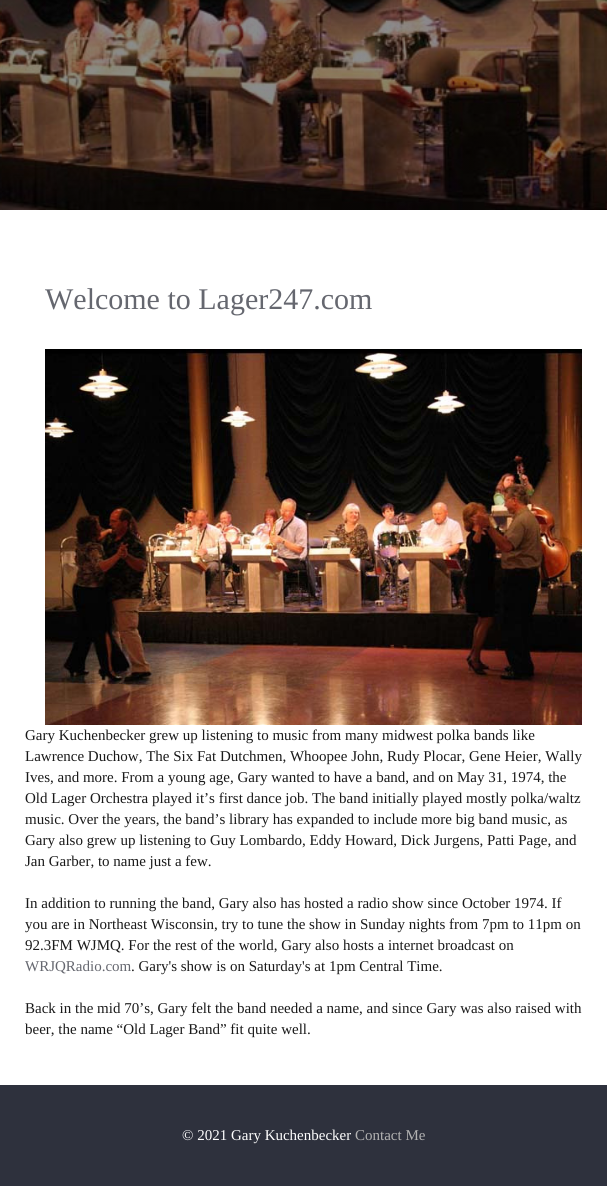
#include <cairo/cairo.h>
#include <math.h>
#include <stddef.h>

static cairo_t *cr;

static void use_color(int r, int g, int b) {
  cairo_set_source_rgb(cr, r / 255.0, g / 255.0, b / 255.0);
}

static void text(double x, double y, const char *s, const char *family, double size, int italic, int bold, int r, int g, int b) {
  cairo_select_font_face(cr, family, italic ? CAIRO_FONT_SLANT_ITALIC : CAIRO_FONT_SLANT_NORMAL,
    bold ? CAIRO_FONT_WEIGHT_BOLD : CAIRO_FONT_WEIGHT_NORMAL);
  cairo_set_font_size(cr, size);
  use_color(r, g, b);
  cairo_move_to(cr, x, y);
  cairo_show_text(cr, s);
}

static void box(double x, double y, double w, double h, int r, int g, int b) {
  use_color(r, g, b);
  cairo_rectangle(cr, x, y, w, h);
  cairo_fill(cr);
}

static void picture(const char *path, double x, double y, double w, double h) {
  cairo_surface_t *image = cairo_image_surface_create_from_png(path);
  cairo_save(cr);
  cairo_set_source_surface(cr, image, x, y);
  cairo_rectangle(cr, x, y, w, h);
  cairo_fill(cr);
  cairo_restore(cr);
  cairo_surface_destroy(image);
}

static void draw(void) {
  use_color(255, 255, 255);
  cairo_paint(cr);
  picture("img_01.png", 0, 0, 607, 210);
  picture("img_02.png", 45, 349, 537, 376);
  box(0, 1085, 607, 101, 46, 49, 61);
  text(45, 309, "Welcome to Lager247.com", "Liberation Serif", 30, 0, 0, 101, 103, 111);
  text(25, 740, "Gary Kuchenbecker grew up listening to music from many midwest polka bands like", "Liberation Serif", 15, 0, 0, 25, 25, 25);
  text(25, 761, "Lawrence Duchow, The Six Fat Dutchmen, Whoopee John, Rudy Plocar, Gene Heier, Wally", "Liberation Serif", 15, 0, 0, 25, 25, 25);
  text(25, 782, "Ives, and more. From a young age, Gary wanted to have a band, and on May 31, 1974, the", "Liberation Serif", 15, 0, 0, 25, 25, 25);
  text(25, 803, "Old Lager Orchestra played it’s first dance job. The band initially played mostly polka/waltz", "Liberation Serif", 15, 0, 0, 25, 25, 25);
  text(25, 824, "music. Over the years, the band’s library has expanded to include more big band music, as", "Liberation Serif", 15, 0, 0, 25, 25, 25);
  text(25, 845, "Gary also grew up listening to Guy Lombardo, Eddy Howard, Dick Jurgens, Patti Page, and", "Liberation Serif", 15, 0, 0, 25, 25, 25);
  text(25, 866, "Jan Garber, to name just a few.", "Liberation Serif", 15, 0, 0, 25, 25, 25);
  text(25, 908, "In addition to running the band, Gary also has hosted a radio show since October 1974. If", "Liberation Serif", 15, 0, 0, 25, 25, 25);
  text(25, 929, "you are in Northeast Wisconsin, try to tune the show in Sunday nights from 7pm to 11pm on", "Liberation Serif", 15, 0, 0, 25, 25, 25);
  text(25, 950, "92.3FM WJMQ. For the rest of the world, Gary also hosts a internet broadcast on", "Liberation Serif", 15, 0, 0, 25, 25, 25);
  text(25, 971, "WRJQRadio.com", "Liberation Serif", 15, 0, 0, 101, 103, 111);
  text(131, 971, ". Gary's show is on Saturday's at 1pm Central Time.", "Liberation Serif", 15, 0, 0, 25, 25, 25);
  text(25, 1013, "Back in the mid 70’s, Gary felt the band needed a name, and since Gary was also raised with", "Liberation Serif", 15, 0, 0, 25, 25, 25);
  text(25, 1034, "beer, the name “Old Lager Band” fit quite well.", "Liberation Serif", 15, 0, 0, 25, 25, 25);
  text(182, 1140, "© 2021 Gary Kuchenbecker", "Liberation Serif", 15, 0, 0, 255, 255, 255);
  text(355, 1140, "Contact Me", "Liberation Serif", 15, 0, 0, 178, 178, 178);
}

int main(void) {
  cairo_surface_t *surface = cairo_image_surface_create(CAIRO_FORMAT_RGB24, 607, 1186);
  cr = cairo_create(surface);
  cairo_font_options_t *options = cairo_font_options_create();
  cairo_font_options_set_hint_metrics(options, CAIRO_HINT_METRICS_OFF);
  cairo_font_options_set_hint_style(options, CAIRO_HINT_STYLE_NONE);
  cairo_set_font_options(cr, options);
  cairo_set_miter_limit(cr, 4);
  draw();
  cairo_surface_write_to_png(surface, "out.png");
  cairo_font_options_destroy(options);
  cairo_destroy(cr);
  cairo_surface_destroy(surface);
  return 0;
}
